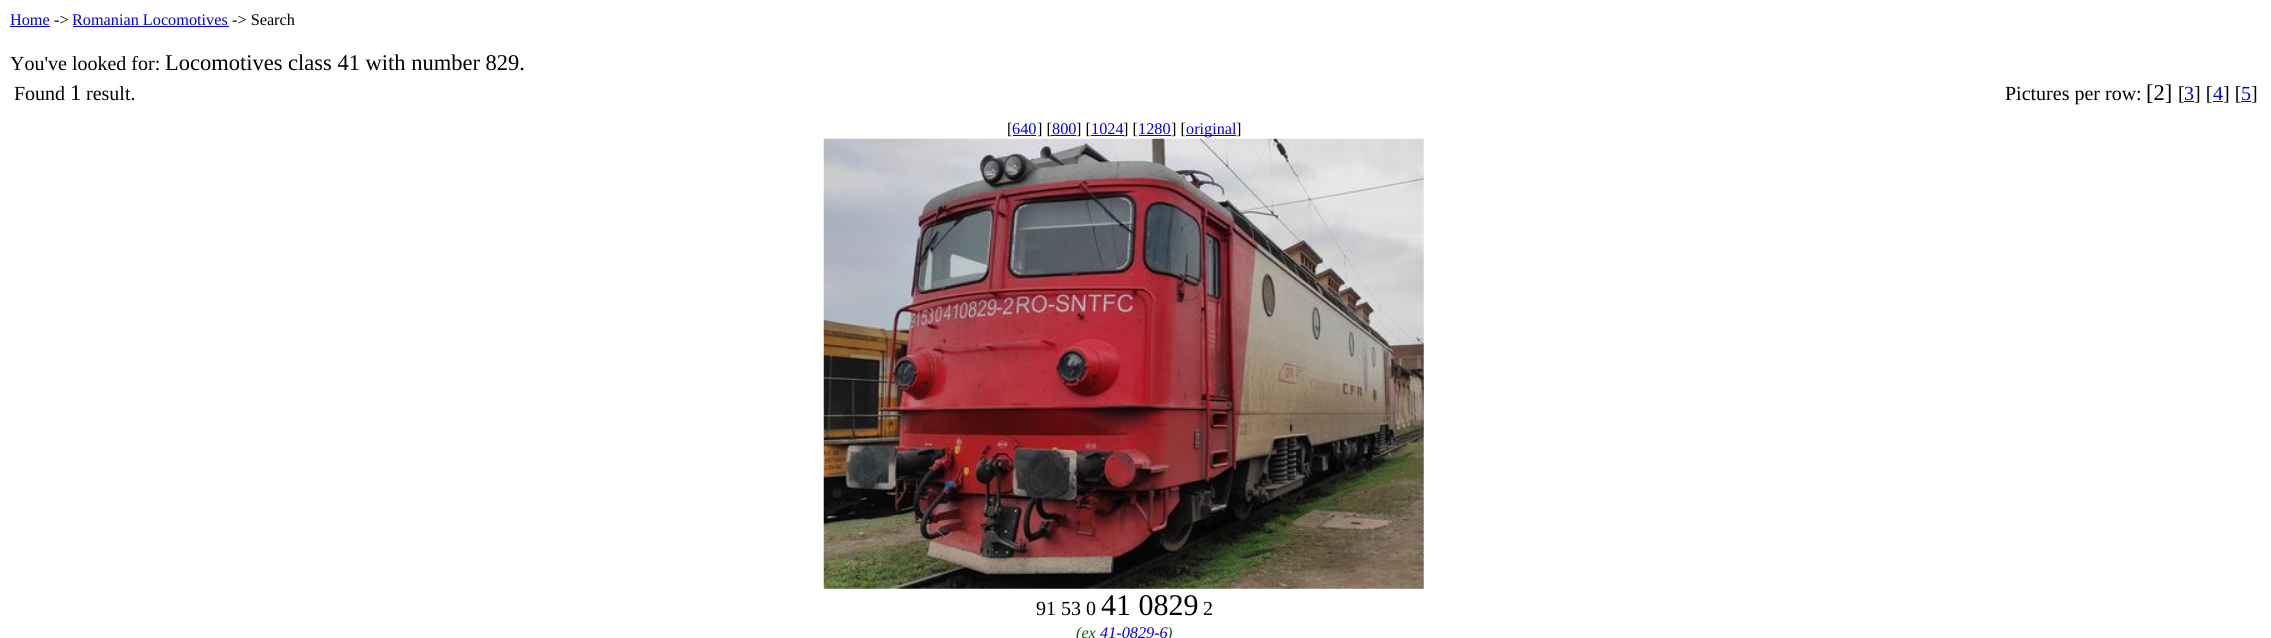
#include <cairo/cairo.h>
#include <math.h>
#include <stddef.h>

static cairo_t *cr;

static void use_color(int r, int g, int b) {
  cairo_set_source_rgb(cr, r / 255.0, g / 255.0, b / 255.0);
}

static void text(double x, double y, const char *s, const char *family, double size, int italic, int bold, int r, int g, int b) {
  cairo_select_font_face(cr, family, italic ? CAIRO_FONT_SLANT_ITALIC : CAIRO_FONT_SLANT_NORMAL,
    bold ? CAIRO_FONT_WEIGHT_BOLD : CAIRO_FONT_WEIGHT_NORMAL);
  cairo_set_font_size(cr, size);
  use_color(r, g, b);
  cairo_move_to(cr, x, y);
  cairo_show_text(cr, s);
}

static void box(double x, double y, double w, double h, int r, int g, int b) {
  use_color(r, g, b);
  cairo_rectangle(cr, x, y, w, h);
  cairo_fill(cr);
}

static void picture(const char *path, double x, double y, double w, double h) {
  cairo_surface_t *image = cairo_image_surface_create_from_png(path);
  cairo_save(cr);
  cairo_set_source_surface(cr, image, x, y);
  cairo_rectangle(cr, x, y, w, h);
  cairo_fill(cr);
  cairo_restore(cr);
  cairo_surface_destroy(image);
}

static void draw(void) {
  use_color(255, 255, 255);
  cairo_paint(cr);
  box(10, 26, 40, 1, 0, 0, 238);
  box(73, 26, 156, 1, 0, 0, 238);
  box(2184, 101, 10, 1, 0, 0, 238);
  box(2213, 101, 10, 1, 0, 0, 238);
  box(2241, 101, 10, 1, 0, 0, 238);
  box(1013, 135, 23, 1, 0, 0, 238);
  box(1091, 135, 33, 1, 0, 0, 238);
  box(1139, 135, 32, 1, 0, 0, 238);
  box(1186, 135, 50, 1, 0, 0, 238);
  picture("img_01.png", 823, 138, 601, 451);
  text(10, 25, "Home", "Liberation Serif", 16.25, 0, 0, 0, 0, 238);
  text(54, 25, "->", "Liberation Serif", 16.25, 0, 0, 0, 0, 0);
  text(72, 25, "Romanian Locomotives", "Liberation Serif", 16.25, 0, 0, 0, 0, 238);
  text(232, 25, "-> Search", "Liberation Serif", 16.25, 0, 0, 0, 0, 0);
  text(10, 70, "You've looked for:", "Liberation Serif", 20, 0, 0, 0, 0, 0);
  text(165, 70, "Locomotives class 41 with number 829.", "Liberation Serif", 22.5, 0, 0, 0, 0, 0);
  text(14, 100, "Found", "Liberation Serif", 20, 0, 0, 0, 0, 0);
  text(70, 100, "1", "Liberation Serif", 22.5, 0, 0, 0, 0, 0);
  text(86, 100, "result.", "Liberation Serif", 20, 0, 0, 0, 0, 0);
  text(2005, 100, "Pictures per row:", "Liberation Serif", 20, 0, 0, 0, 0, 0);
  text(2146, 100, "[2]", "Liberation Serif", 22.5, 0, 0, 0, 0, 0);
  text(2178, 100, "[", "Liberation Serif", 20, 0, 0, 0, 0, 0);
  text(2184, 100, "3", "Liberation Serif", 20, 0, 0, 0, 0, 238);
  text(2194, 100, "] [", "Liberation Serif", 20, 0, 0, 0, 0, 0);
  text(2213, 100, "4", "Liberation Serif", 20, 0, 0, 0, 0, 238);
  text(2223, 100, "] [", "Liberation Serif", 20, 0, 0, 0, 0, 0);
  text(2241, 100, "5", "Liberation Serif", 20, 0, 0, 0, 0, 238);
  text(2251, 100, "]", "Liberation Serif", 20, 0, 0, 0, 0, 0);
  text(1007, 134, "[", "Liberation Serif", 16.25, 0, 0, 0, 0, 0);
  text(1012, 134, "640", "Liberation Serif", 16.25, 0, 0, 0, 0, 238);
  text(1037, 134, "] [", "Liberation Serif", 16.25, 0, 0, 0, 0, 0);
  box(1051, 135, 25, 1, 0, 0, 238);
  text(1052, 134, "800", "Liberation Serif", 16.25, 0, 0, 0, 0, 238);
  text(1076, 134, "] [", "Liberation Serif", 16.25, 0, 0, 0, 0, 0);
  text(1091, 134, "1024", "Liberation Serif", 16.25, 0, 0, 0, 0, 238);
  text(1123, 134, "] [", "Liberation Serif", 16.25, 0, 0, 0, 0, 0);
  text(1138, 134, "1280", "Liberation Serif", 16.25, 0, 0, 0, 0, 238);
  text(1171, 134, "] [", "Liberation Serif", 16.25, 0, 0, 0, 0, 0);
  text(1186, 134, "original", "Liberation Serif", 16.25, 0, 0, 0, 0, 238);
  text(1236, 134, "]", "Liberation Serif", 16.25, 0, 0, 0, 0, 0);
  text(1036, 615, "91 53 0", "Liberation Serif", 20, 0, 0, 0, 0, 0);
  text(1101, 615, "41 0829", "Liberation Serif", 30, 0, 0, 0, 0, 0);
  text(1203, 615, "2", "Liberation Serif", 20, 0, 0, 0, 0, 0);
  text(1076, 638, "(ex", "Liberation Serif", 16.25, 1, 0, 0, 100, 0);
  text(1100, 638, "41-0829-6", "Liberation Serif", 16.25, 1, 0, 0, 0, 238);
  text(1167, 638, ")", "Liberation Serif", 16.25, 1, 0, 0, 100, 0);
}

int main(void) {
  cairo_surface_t *surface = cairo_image_surface_create(CAIRO_FORMAT_RGB24, 2271, 638);
  cr = cairo_create(surface);
  cairo_font_options_t *options = cairo_font_options_create();
  cairo_font_options_set_hint_metrics(options, CAIRO_HINT_METRICS_OFF);
  cairo_font_options_set_hint_style(options, CAIRO_HINT_STYLE_NONE);
  cairo_set_font_options(cr, options);
  cairo_set_miter_limit(cr, 4);
  draw();
  cairo_surface_write_to_png(surface, "out.png");
  cairo_font_options_destroy(options);
  cairo_destroy(cr);
  cairo_surface_destroy(surface);
  return 0;
}
